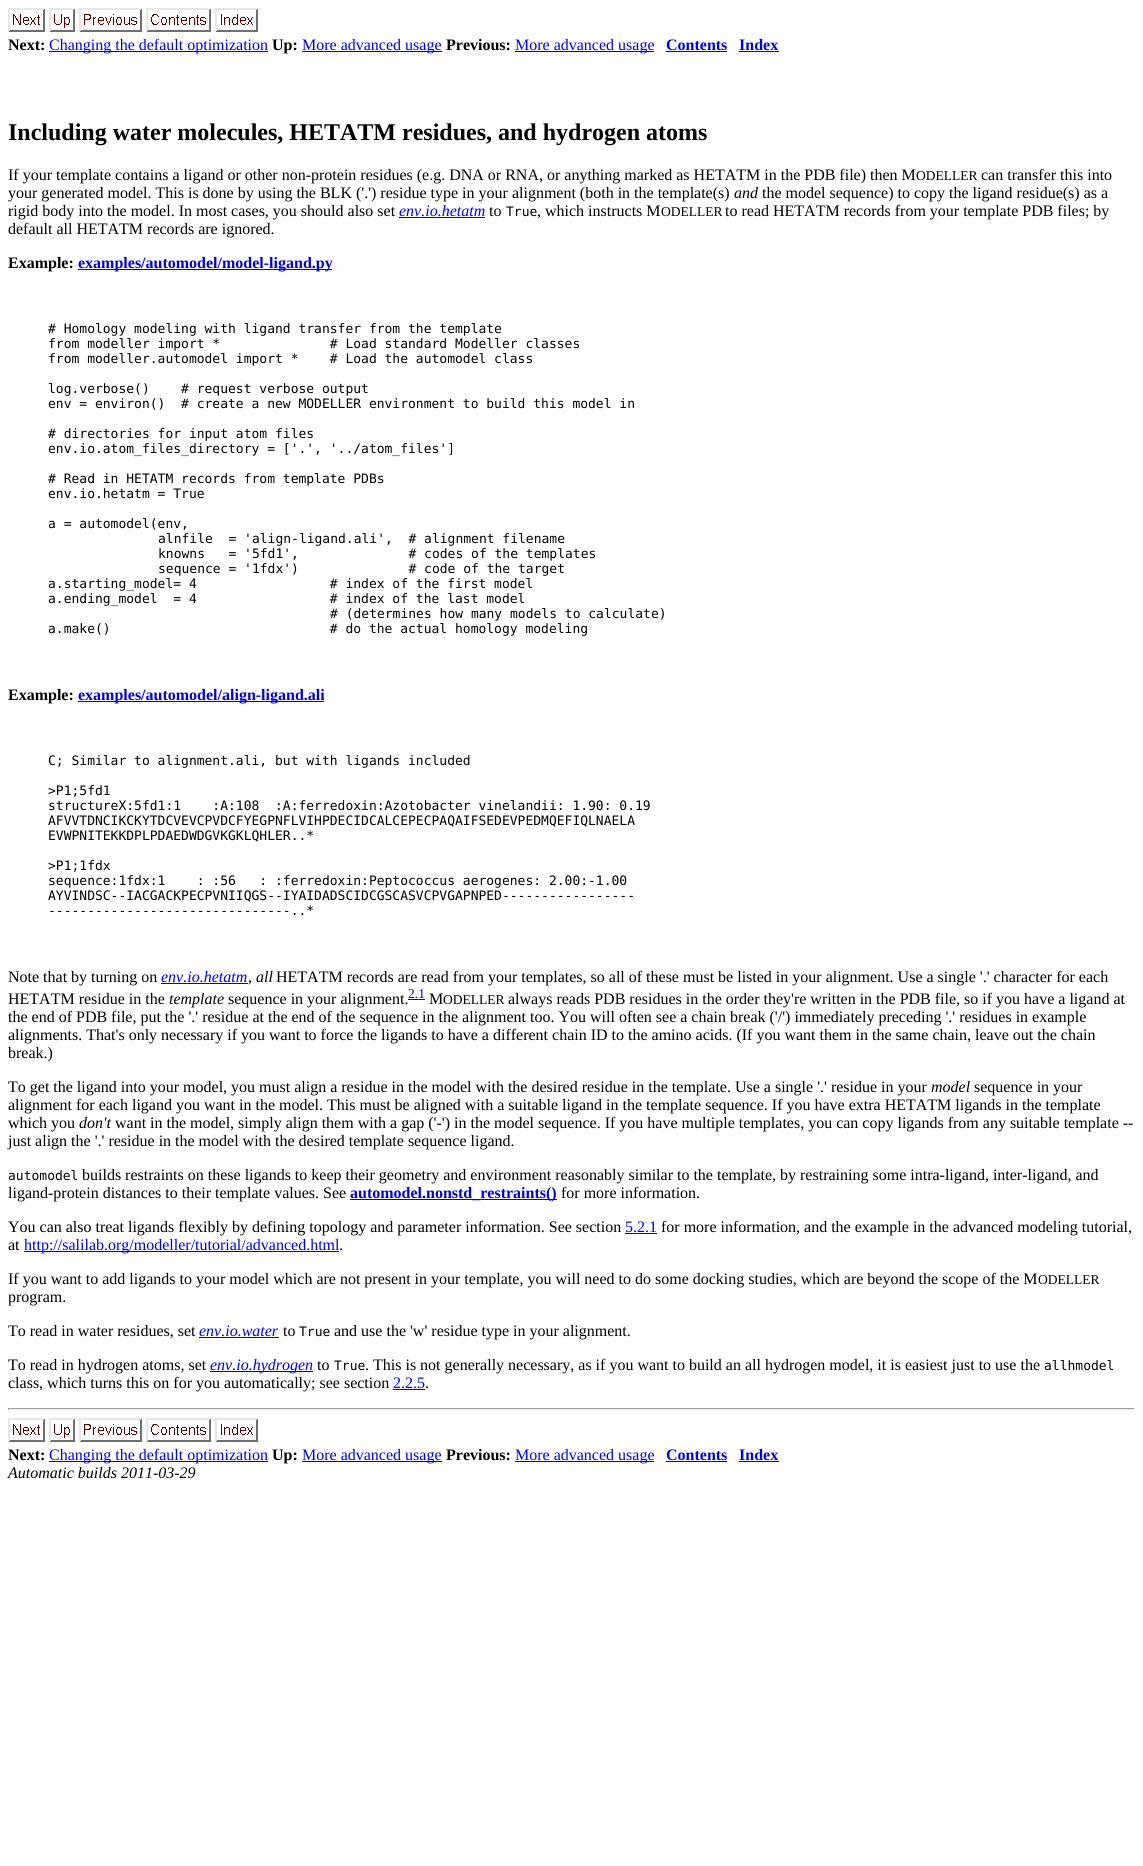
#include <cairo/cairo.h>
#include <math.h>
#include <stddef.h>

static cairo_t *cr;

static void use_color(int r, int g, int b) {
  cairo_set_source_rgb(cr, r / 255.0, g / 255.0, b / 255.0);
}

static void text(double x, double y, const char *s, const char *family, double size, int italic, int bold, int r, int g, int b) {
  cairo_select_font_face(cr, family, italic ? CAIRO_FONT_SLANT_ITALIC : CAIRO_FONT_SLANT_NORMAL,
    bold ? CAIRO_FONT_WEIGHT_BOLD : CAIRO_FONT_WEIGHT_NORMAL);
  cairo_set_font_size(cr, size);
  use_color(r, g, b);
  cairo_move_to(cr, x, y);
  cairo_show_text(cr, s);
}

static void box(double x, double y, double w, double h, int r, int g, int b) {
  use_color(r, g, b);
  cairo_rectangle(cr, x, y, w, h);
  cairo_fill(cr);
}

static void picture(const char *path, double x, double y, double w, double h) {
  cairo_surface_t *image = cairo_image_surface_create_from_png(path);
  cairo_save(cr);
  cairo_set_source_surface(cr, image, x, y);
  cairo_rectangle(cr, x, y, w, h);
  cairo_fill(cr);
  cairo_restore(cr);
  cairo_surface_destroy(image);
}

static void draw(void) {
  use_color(255, 255, 255);
  cairo_paint(cr);
  picture("img_01.png", 8, 8, 37, 24);
  picture("img_02.png", 49, 8, 26, 24);
  picture("img_03.png", 79, 8, 63, 24);
  picture("img_04.png", 146, 8, 65, 24);
  picture("img_05.png", 215, 8, 43, 24);
  box(49, 51, 219, 1, 0, 0, 238);
  box(302, 51, 140, 1, 0, 0, 238);
  box(515, 51, 139, 1, 0, 0, 238);
  box(666, 51, 61, 1, 0, 0, 238);
  box(739, 51, 40, 1, 0, 0, 238);
  box(399, 217, 86, 1, 0, 0, 238);
  box(78, 269, 254, 1, 0, 0, 238);
  box(78, 701, 246, 1, 0, 0, 238);
  box(161, 983, 87, 1, 0, 0, 238);
  box(408, 999, 17, 1, 0, 0, 238);
  box(350, 1199, 207, 1, 0, 0, 238);
  box(625, 1233, 32, 1, 0, 0, 238);
  box(24, 1251, 315, 1, 0, 0, 238);
  box(199, 1337, 80, 1, 0, 0, 238);
  box(210, 1371, 103, 1, 0, 0, 238);
  box(393, 1389, 32, 1, 0, 0, 238);
  box(8, 1408, 1127, 1, 159, 159, 159);
  box(1134, 1408, 1, 2, 238, 238, 238);
  box(8, 1409, 1127, 1, 238, 238, 238);
  box(8, 1408, 1, 2, 159, 159, 159);
  picture("img_01.png", 8, 1418, 37, 24);
  picture("img_02.png", 49, 1418, 26, 24);
  picture("img_03.png", 79, 1418, 63, 24);
  picture("img_04.png", 146, 1418, 65, 24);
  picture("img_05.png", 215, 1418, 43, 24);
  box(49, 1461, 219, 1, 0, 0, 238);
  box(302, 1461, 140, 1, 0, 0, 238);
  box(515, 1461, 139, 1, 0, 0, 238);
  box(666, 1461, 61, 1, 0, 0, 238);
  box(739, 1461, 40, 1, 0, 0, 238);
  text(8, 50, "Next:", "Liberation Serif", 16, 0, 1, 0, 0, 0);
  text(49, 50, "Changing the default optimization", "Liberation Serif", 16, 0, 0, 0, 0, 238);
  text(272, 50, "Up:", "Liberation Serif", 16, 0, 1, 0, 0, 0);
  text(302, 50, "More advanced usage", "Liberation Serif", 16, 0, 0, 0, 0, 238);
  text(446, 50, "Previous:", "Liberation Serif", 16, 0, 1, 0, 0, 0);
  text(515, 50, "More advanced usage", "Liberation Serif", 16, 0, 0, 0, 0, 238);
  text(666, 50, "Contents", "Liberation Serif", 16, 0, 1, 0, 0, 238);
  text(739, 50, "Index", "Liberation Serif", 16, 0, 1, 0, 0, 238);
  text(8, 140, "Including water molecules, HETATM residues, and hydrogen atoms", "Liberation Serif", 24, 0, 1, 0, 0, 0);
  text(8, 180, "If your template contains a ligand or other non-protein residues (e.g. DNA or RNA, or anything marked as HETATM in the PDB file) then M", "Liberation Serif", 16, 0, 0, 0, 0, 0);
  text(916, 180, "ODELLER", "Liberation Serif", 13.5, 0, 0, 0, 0, 0);
  text(981, 180, "can transfer this into", "Liberation Serif", 16, 0, 0, 0, 0, 0);
  text(8, 198, "your generated model. This is done by using the BLK ('.') residue type in your alignment (both in the template(s)", "Liberation Serif", 16, 0, 0, 0, 0, 0);
  text(734, 198, "and", "Liberation Serif", 16, 1, 0, 0, 0, 0);
  text(762, 198, "the model sequence) to copy the ligand residue(s) as a", "Liberation Serif", 16, 0, 0, 0, 0, 0);
  text(8, 216, "rigid body into the model. In most cases, you should also set", "Liberation Serif", 16, 0, 0, 0, 0, 0);
  text(399, 216, "env.io.hetatm", "Liberation Serif", 16, 1, 0, 0, 0, 238);
  text(489, 216, "to", "Liberation Serif", 16, 0, 0, 0, 0, 0);
  text(506, 216, "True", "DejaVu Sans Mono", 13, 0, 0, 0, 0, 0);
  text(537, 216, ", which instructs M", "Liberation Serif", 16, 0, 0, 0, 0, 0);
  text(661, 216, "ODELLER", "Liberation Serif", 13.5, 0, 0, 0, 0, 0);
  text(725, 216, "to read HETATM records from your template PDB files; by", "Liberation Serif", 16, 0, 0, 0, 0, 0);
  text(8, 234, "default all HETATM records are ignored.", "Liberation Serif", 16, 0, 0, 0, 0, 0);
  text(8, 268, "Example:", "Liberation Serif", 16, 0, 1, 0, 0, 0);
  text(78, 268, "examples/automodel/model-ligand.py", "Liberation Serif", 16, 0, 1, 0, 0, 238);
  text(48, 333, "# Homology modeling with ligand transfer from the template", "DejaVu Sans Mono", 13, 0, 0, 0, 0, 0);
  text(48, 348, "from modeller import *              # Load standard Modeller classes", "DejaVu Sans Mono", 13, 0, 0, 0, 0, 0);
  text(48, 363, "from modeller.automodel import *    # Load the automodel class", "DejaVu Sans Mono", 13, 0, 0, 0, 0, 0);
  text(48, 393, "log.verbose()    # request verbose output", "DejaVu Sans Mono", 13, 0, 0, 0, 0, 0);
  text(48, 408, "env = environ()  # create a new MODELLER environment to build this model in", "DejaVu Sans Mono", 13, 0, 0, 0, 0, 0);
  text(48, 438, "# directories for input atom files", "DejaVu Sans Mono", 13, 0, 0, 0, 0, 0);
  text(48, 453, "env.io.atom_files_directory = ['.', '../atom_files']", "DejaVu Sans Mono", 13, 0, 0, 0, 0, 0);
  text(48, 483, "# Read in HETATM records from template PDBs", "DejaVu Sans Mono", 13, 0, 0, 0, 0, 0);
  text(48, 498, "env.io.hetatm = True", "DejaVu Sans Mono", 13, 0, 0, 0, 0, 0);
  text(48, 528, "a = automodel(env,", "DejaVu Sans Mono", 13, 0, 0, 0, 0, 0);
  text(158, 543, "alnfile  = 'align-ligand.ali',  # alignment filename", "DejaVu Sans Mono", 13, 0, 0, 0, 0, 0);
  text(158, 558, "knowns   = '5fd1',              # codes of the templates", "DejaVu Sans Mono", 13, 0, 0, 0, 0, 0);
  text(158, 573, "sequence = '1fdx')              # code of the target", "DejaVu Sans Mono", 13, 0, 0, 0, 0, 0);
  text(48, 588, "a.starting_model= 4                 # index of the first model", "DejaVu Sans Mono", 13, 0, 0, 0, 0, 0);
  text(48, 603, "a.ending_model  = 4                 # index of the last model", "DejaVu Sans Mono", 13, 0, 0, 0, 0, 0);
  text(330, 618, "# (determines how many models to calculate)", "DejaVu Sans Mono", 13, 0, 0, 0, 0, 0);
  text(48, 633, "a.make()                            # do the actual homology modeling", "DejaVu Sans Mono", 13, 0, 0, 0, 0, 0);
  text(8, 700, "Example:", "Liberation Serif", 16, 0, 1, 0, 0, 0);
  text(78, 700, "examples/automodel/align-ligand.ali", "Liberation Serif", 16, 0, 1, 0, 0, 238);
  text(48, 765, "C; Similar to alignment.ali, but with ligands included", "DejaVu Sans Mono", 13, 0, 0, 0, 0, 0);
  text(48, 795, ">P1;5fd1", "DejaVu Sans Mono", 13, 0, 0, 0, 0, 0);
  text(48, 810, "structureX:5fd1:1    :A:108  :A:ferredoxin:Azotobacter vinelandii: 1.90: 0.19", "DejaVu Sans Mono", 13, 0, 0, 0, 0, 0);
  text(48, 825, "AFVVTDNCIKCKYTDCVEVCPVDCFYEGPNFLVIHPDECIDCALCEPECPAQAIFSEDEVPEDMQEFIQLNAELA", "DejaVu Sans Mono", 13, 0, 0, 0, 0, 0);
  text(48, 840, "EVWPNITEKKDPLPDAEDWDGVKGKLQHLER..*", "DejaVu Sans Mono", 13, 0, 0, 0, 0, 0);
  text(48, 870, ">P1;1fdx", "DejaVu Sans Mono", 13, 0, 0, 0, 0, 0);
  text(48, 885, "sequence:1fdx:1    : :56   : :ferredoxin:Peptococcus aerogenes: 2.00:-1.00", "DejaVu Sans Mono", 13, 0, 0, 0, 0, 0);
  text(48, 900, "AYVINDSC--IACGACKPECPVNIIQGS--IYAIDADSCIDCGSCASVCPVGAPNPED-----------------", "DejaVu Sans Mono", 13, 0, 0, 0, 0, 0);
  text(48, 915, "-------------------------------..*", "DejaVu Sans Mono", 13, 0, 0, 0, 0, 0);
  text(8, 982, "Note that by turning on", "Liberation Serif", 16, 0, 0, 0, 0, 0);
  text(161, 982, "env.io.hetatm", "Liberation Serif", 16, 1, 0, 0, 0, 238);
  text(248, 982, ",", "Liberation Serif", 16, 0, 0, 0, 0, 0);
  text(256, 982, "all", "Liberation Serif", 16, 1, 0, 0, 0, 0);
  text(276, 982, "HETATM records are read from your templates, so all of these must be listed in your alignment. Use a single '.' character for each", "Liberation Serif", 16, 0, 0, 0, 0, 0);
  text(8, 1004, "HETATM residue in the", "Liberation Serif", 16, 0, 0, 0, 0, 0);
  text(169, 1004, "template", "Liberation Serif", 16, 1, 0, 0, 0, 0);
  text(228, 1004, "sequence in your alignment.", "Liberation Serif", 16, 0, 0, 0, 0, 0);
  text(408, 998, "2.1", "Liberation Serif", 13.5, 0, 0, 0, 0, 238);
  text(429, 1004, "M", "Liberation Serif", 16, 0, 0, 0, 0, 0);
  text(443, 1004, "ODELLER", "Liberation Serif", 13.5, 0, 0, 0, 0, 0);
  text(508, 1004, "always reads PDB residues in the order they're written in the PDB file, so if you have a ligand at", "Liberation Serif", 16, 0, 0, 0, 0, 0);
  text(8, 1022, "the end of PDB file, put the '.' residue at the end of the sequence in the alignment too. You will often see a chain break ('/') immediately preceding '.' residues in example", "Liberation Serif", 16, 0, 0, 0, 0, 0);
  text(8, 1040, "alignments. That's only necessary if you want to force the ligands to have a different chain ID to the amino acids. (If you want them in the same chain, leave out the chain", "Liberation Serif", 16, 0, 0, 0, 0, 0);
  text(8, 1058, "break.)", "Liberation Serif", 16, 0, 0, 0, 0, 0);
  text(8, 1092, "To get the ligand into your model, you must align a residue in the model with the desired residue in the template. Use a single '.' residue in your", "Liberation Serif", 16, 0, 0, 0, 0, 0);
  text(931, 1092, "model", "Liberation Serif", 16, 1, 0, 0, 0, 0);
  text(974, 1092, "sequence in your", "Liberation Serif", 16, 0, 0, 0, 0, 0);
  text(8, 1110, "alignment for each ligand you want in the model. This must be aligned with a suitable ligand in the template sequence. If you have extra HETATM ligands in the template", "Liberation Serif", 16, 0, 0, 0, 0, 0);
  text(8, 1128, "which you", "Liberation Serif", 16, 0, 0, 0, 0, 0);
  text(79, 1128, "don't", "Liberation Serif", 16, 1, 0, 0, 0, 0);
  text(115, 1128, "want in the model, simply align them with a gap ('-') in the model sequence. If you have multiple templates, you can copy ligands from any suitable template --", "Liberation Serif", 16, 0, 0, 0, 0, 0);
  text(8, 1146, "just align the '.' residue in the model with the desired template sequence ligand.", "Liberation Serif", 16, 0, 0, 0, 0, 0);
  text(8, 1180, "automodel", "DejaVu Sans Mono", 13, 0, 0, 0, 0, 0);
  text(82, 1180, "builds restraints on these ligands to keep their geometry and environment reasonably similar to the template, by restraining some intra-ligand, inter-ligand, and", "Liberation Serif", 16, 0, 0, 0, 0, 0);
  text(8, 1198, "ligand-protein distances to their template values. See", "Liberation Serif", 16, 0, 0, 0, 0, 0);
  text(350, 1198, "automodel.nonstd_restraints()", "Liberation Serif", 16, 0, 1, 0, 0, 238);
  text(561, 1198, "for more information.", "Liberation Serif", 16, 0, 0, 0, 0, 0);
  text(8, 1232, "You can also treat ligands flexibly by defining topology and parameter information. See section", "Liberation Serif", 16, 0, 0, 0, 0, 0);
  text(625, 1232, "5.2.1", "Liberation Serif", 16, 0, 0, 0, 0, 238);
  text(661, 1232, "for more information, and the example in the advanced modeling tutorial,", "Liberation Serif", 16, 0, 0, 0, 0, 0);
  text(8, 1250, "at", "Liberation Serif", 16, 0, 0, 0, 0, 0);
  text(24, 1250, "http://salilab.org/modeller/tutorial/advanced.html", "Liberation Serif", 16, 0, 0, 0, 0, 238);
  text(339, 1250, ".", "Liberation Serif", 16, 0, 0, 0, 0, 0);
  text(8, 1284, "If you want to add ligands to your model which are not present in your template, you will need to do some docking studies, which are beyond the scope of the M", "Liberation Serif", 16, 0, 0, 0, 0, 0);
  text(1038, 1284, "ODELLER", "Liberation Serif", 13.5, 0, 0, 0, 0, 0);
  text(8, 1302, "program.", "Liberation Serif", 16, 0, 0, 0, 0, 0);
  text(8, 1336, "To read in water residues, set", "Liberation Serif", 16, 0, 0, 0, 0, 0);
  text(199, 1336, "env.io.water", "Liberation Serif", 16, 1, 0, 0, 0, 238);
  text(283, 1336, "to", "Liberation Serif", 16, 0, 0, 0, 0, 0);
  text(299, 1336, "True", "DejaVu Sans Mono", 13, 0, 0, 0, 0, 0);
  text(334, 1336, "and use the 'w' residue type in your alignment.", "Liberation Serif", 16, 0, 0, 0, 0, 0);
  text(8, 1370, "To read in hydrogen atoms, set", "Liberation Serif", 16, 0, 0, 0, 0, 0);
  text(210, 1370, "env.io.hydrogen", "Liberation Serif", 16, 1, 0, 0, 0, 238);
  text(317, 1370, "to", "Liberation Serif", 16, 0, 0, 0, 0, 0);
  text(334, 1370, "True", "DejaVu Sans Mono", 13, 0, 0, 0, 0, 0);
  text(365, 1370, ". This is not generally necessary, as if you want to build an all hydrogen model, it is easiest just to use the", "Liberation Serif", 16, 0, 0, 0, 0, 0);
  text(1044, 1370, "allhmodel", "DejaVu Sans Mono", 13, 0, 0, 0, 0, 0);
  text(8, 1388, "class, which turns this on for you automatically; see section", "Liberation Serif", 16, 0, 0, 0, 0, 0);
  text(393, 1388, "2.2.5", "Liberation Serif", 16, 0, 0, 0, 0, 238);
  text(425, 1388, ".", "Liberation Serif", 16, 0, 0, 0, 0, 0);
  text(8, 1460, "Next:", "Liberation Serif", 16, 0, 1, 0, 0, 0);
  text(49, 1460, "Changing the default optimization", "Liberation Serif", 16, 0, 0, 0, 0, 238);
  text(272, 1460, "Up:", "Liberation Serif", 16, 0, 1, 0, 0, 0);
  text(302, 1460, "More advanced usage", "Liberation Serif", 16, 0, 0, 0, 0, 238);
  text(446, 1460, "Previous:", "Liberation Serif", 16, 0, 1, 0, 0, 0);
  text(515, 1460, "More advanced usage", "Liberation Serif", 16, 0, 0, 0, 0, 238);
  text(666, 1460, "Contents", "Liberation Serif", 16, 0, 1, 0, 0, 238);
  text(739, 1460, "Index", "Liberation Serif", 16, 0, 1, 0, 0, 238);
  text(8, 1478, "Automatic builds 2011-03-29", "Liberation Serif", 16, 1, 0, 0, 0, 0);
}

int main(void) {
  cairo_surface_t *surface = cairo_image_surface_create(CAIRO_FORMAT_RGB24, 1143, 1866);
  cr = cairo_create(surface);
  cairo_font_options_t *options = cairo_font_options_create();
  cairo_font_options_set_hint_metrics(options, CAIRO_HINT_METRICS_OFF);
  cairo_font_options_set_hint_style(options, CAIRO_HINT_STYLE_NONE);
  cairo_set_font_options(cr, options);
  cairo_set_miter_limit(cr, 4);
  draw();
  cairo_surface_write_to_png(surface, "out.png");
  cairo_font_options_destroy(options);
  cairo_destroy(cr);
  cairo_surface_destroy(surface);
  return 0;
}
